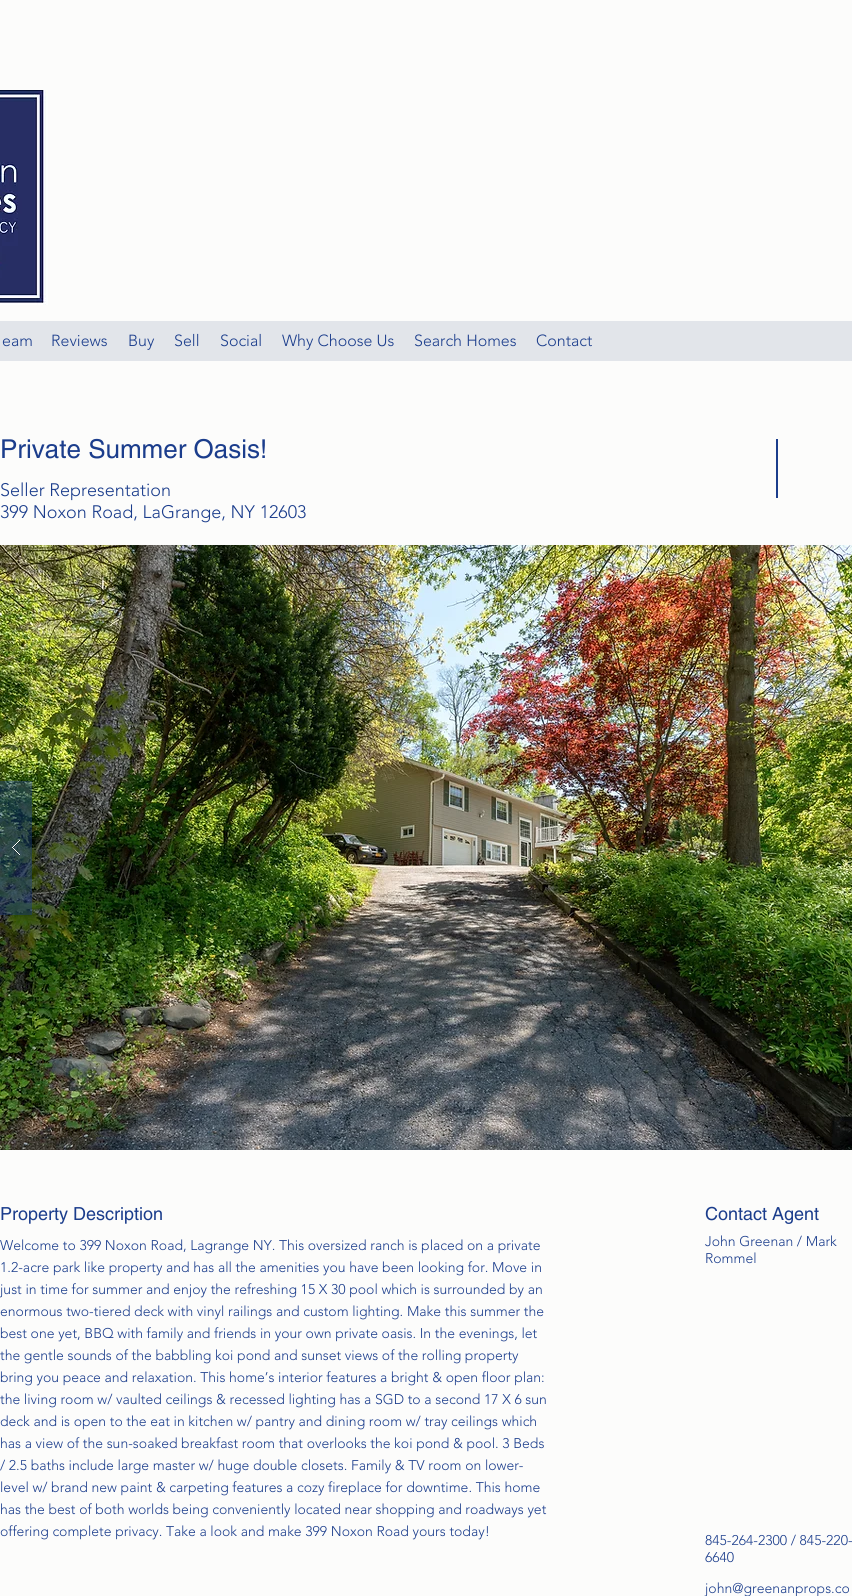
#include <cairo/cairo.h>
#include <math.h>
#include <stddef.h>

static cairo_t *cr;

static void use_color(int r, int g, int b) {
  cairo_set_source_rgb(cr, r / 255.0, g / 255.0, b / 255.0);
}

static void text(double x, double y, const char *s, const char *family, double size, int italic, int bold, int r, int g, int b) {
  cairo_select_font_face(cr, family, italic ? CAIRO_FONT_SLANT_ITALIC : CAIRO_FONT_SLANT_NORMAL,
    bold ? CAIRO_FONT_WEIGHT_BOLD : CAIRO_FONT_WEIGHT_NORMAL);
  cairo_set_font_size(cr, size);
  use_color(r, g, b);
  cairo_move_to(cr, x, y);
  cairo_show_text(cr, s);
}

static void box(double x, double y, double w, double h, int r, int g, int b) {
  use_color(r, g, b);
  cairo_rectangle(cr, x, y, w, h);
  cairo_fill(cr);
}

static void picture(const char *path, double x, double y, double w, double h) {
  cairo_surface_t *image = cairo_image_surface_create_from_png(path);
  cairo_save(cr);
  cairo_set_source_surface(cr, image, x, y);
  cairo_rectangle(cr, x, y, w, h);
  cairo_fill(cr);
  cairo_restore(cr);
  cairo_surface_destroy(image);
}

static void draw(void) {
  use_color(252, 252, 251);
  cairo_paint(cr);
  picture("img_01.png", 0, 90, 48, 215);
  box(0, 321, 852, 40, 226, 229, 234);
  box(776, 439, 2, 59, 27, 61, 140);
  picture("img_02.png", 0, 545, 852, 605);
  cairo_set_source_rgba(cr, 0.106, 0.239, 0.549, 0.4);
  cairo_rectangle(cr, 0, 781, 32, 134);
  cairo_fill(cr);
  picture("img_03.png", 12, 840, 8, 16);
  text(2, 346, "eam", "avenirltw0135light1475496 Light", 16, 0, 0, 27, 61, 140);
  text(51, 346, "Reviews", "avenirltw0135light1475496 Light", 16, 0, 0, 27, 61, 140);
  text(128, 346, "Buy", "avenirltw0135light1475496 Light", 16, 0, 0, 27, 61, 140);
  text(174, 346, "Sell", "avenirltw0135light1475496 Light", 16, 0, 0, 27, 61, 140);
  text(220, 346, "Social", "avenirltw0135light1475496 Light", 16, 0, 0, 27, 61, 140);
  text(282, 346, "Why Choose Us", "avenirltw0135light1475496 Light", 16, 0, 0, 27, 61, 140);
  text(414, 346, "Search Homes", "avenirltw0135light1475496 Light", 16, 0, 0, 27, 61, 140);
  text(536, 346, "Contact", "avenirltw0135light1475496 Light", 16, 0, 0, 27, 61, 140);
  text(0, 458, "Private Summer Oasis!", "helvetica", 26, 0, 0, 27, 61, 140);
  text(0, 496, "Seller Representation", "avenirltw0135light1475496 Light", 18, 0, 0, 27, 61, 140);
  text(0, 518, "399 Noxon Road, LaGrange, NY 12603", "avenirltw0135light1475496 Light", 18, 0, 0, 27, 61, 140);
  text(0, 1220, "Property Description", "helvetica", 18, 0, 0, 27, 61, 140);
  text(705, 1220, "Contact Agent", "helvetica", 18, 0, 0, 27, 61, 140);
  text(0, 1250, "Welcome to 399 Noxon Road, Lagrange NY. This oversized ranch is placed on a private", "avenirltw0135light1475496 Light", 14, 0, 0, 27, 61, 140);
  text(0, 1272, "1.2-acre park like property and has all the amenities you have been looking for. Move in", "avenirltw0135light1475496 Light", 14, 0, 0, 27, 61, 140);
  text(0, 1294, "just in time for summer and enjoy the refreshing 15 X 30 pool which is surrounded by an", "avenirltw0135light1475496 Light", 14, 0, 0, 27, 61, 140);
  text(0, 1316, "enormous two-tiered deck with vinyl railings and custom lighting. Make this summer the", "avenirltw0135light1475496 Light", 14, 0, 0, 27, 61, 140);
  text(0, 1338, "best one yet, BBQ with family and friends in your own private oasis. In the evenings, let", "avenirltw0135light1475496 Light", 14, 0, 0, 27, 61, 140);
  text(0, 1360, "the gentle sounds of the babbling koi pond and sunset views of the rolling property", "avenirltw0135light1475496 Light", 14, 0, 0, 27, 61, 140);
  text(0, 1382, "bring you peace and relaxation. This home’s interior features a bright & open floor plan:", "avenirltw0135light1475496 Light", 14, 0, 0, 27, 61, 140);
  text(0, 1404, "the living room w/ vaulted ceilings & recessed lighting has a SGD to a second 17 X 6 sun", "avenirltw0135light1475496 Light", 14, 0, 0, 27, 61, 140);
  text(0, 1426, "deck and is open to the eat in kitchen w/ pantry and dining room w/ tray ceilings which", "avenirltw0135light1475496 Light", 14, 0, 0, 27, 61, 140);
  text(0, 1448, "has a view of the sun-soaked breakfast room that overlooks the koi pond & pool. 3 Beds", "avenirltw0135light1475496 Light", 14, 0, 0, 27, 61, 140);
  text(0, 1470, "/ 2.5 baths include large master w/ huge double closets. Family & TV room on lower-", "avenirltw0135light1475496 Light", 14, 0, 0, 27, 61, 140);
  text(0, 1492, "level w/ brand new paint & carpeting features a cozy fireplace for downtime. This home", "avenirltw0135light1475496 Light", 14, 0, 0, 27, 61, 140);
  text(0, 1514, "has the best of both worlds being conveniently located near shopping and roadways yet", "avenirltw0135light1475496 Light", 14, 0, 0, 27, 61, 140);
  text(0, 1536, "offering complete privacy. Take a look and make 399 Noxon Road yours today!", "avenirltw0135light1475496 Light", 14, 0, 0, 27, 61, 140);
  text(705, 1246, "John Greenan / Mark", "avenirltw0135light1475496 Light", 14, 0, 0, 27, 61, 140);
  text(705, 1263, "Rommel", "avenirltw0135light1475496 Light", 14, 0, 0, 27, 61, 140);
  text(705, 1545, "845-264-2300 / 845-220-", "avenirltw0135light1475496 Light", 14, 0, 0, 27, 61, 140);
  text(705, 1562, "6640", "avenirltw0135light1475496 Light", 14, 0, 0, 27, 61, 140);
  text(705, 1593, "john@greenanprops.co", "avenirltw0135light1475496 Light", 14, 0, 0, 27, 61, 140);
}

int main(void) {
  cairo_surface_t *surface = cairo_image_surface_create(CAIRO_FORMAT_RGB24, 852, 1596);
  cr = cairo_create(surface);
  cairo_font_options_t *options = cairo_font_options_create();
  cairo_font_options_set_hint_metrics(options, CAIRO_HINT_METRICS_OFF);
  cairo_font_options_set_hint_style(options, CAIRO_HINT_STYLE_NONE);
  cairo_set_font_options(cr, options);
  cairo_set_miter_limit(cr, 4);
  draw();
  cairo_surface_write_to_png(surface, "out.png");
  cairo_font_options_destroy(options);
  cairo_destroy(cr);
  cairo_surface_destroy(surface);
  return 0;
}
